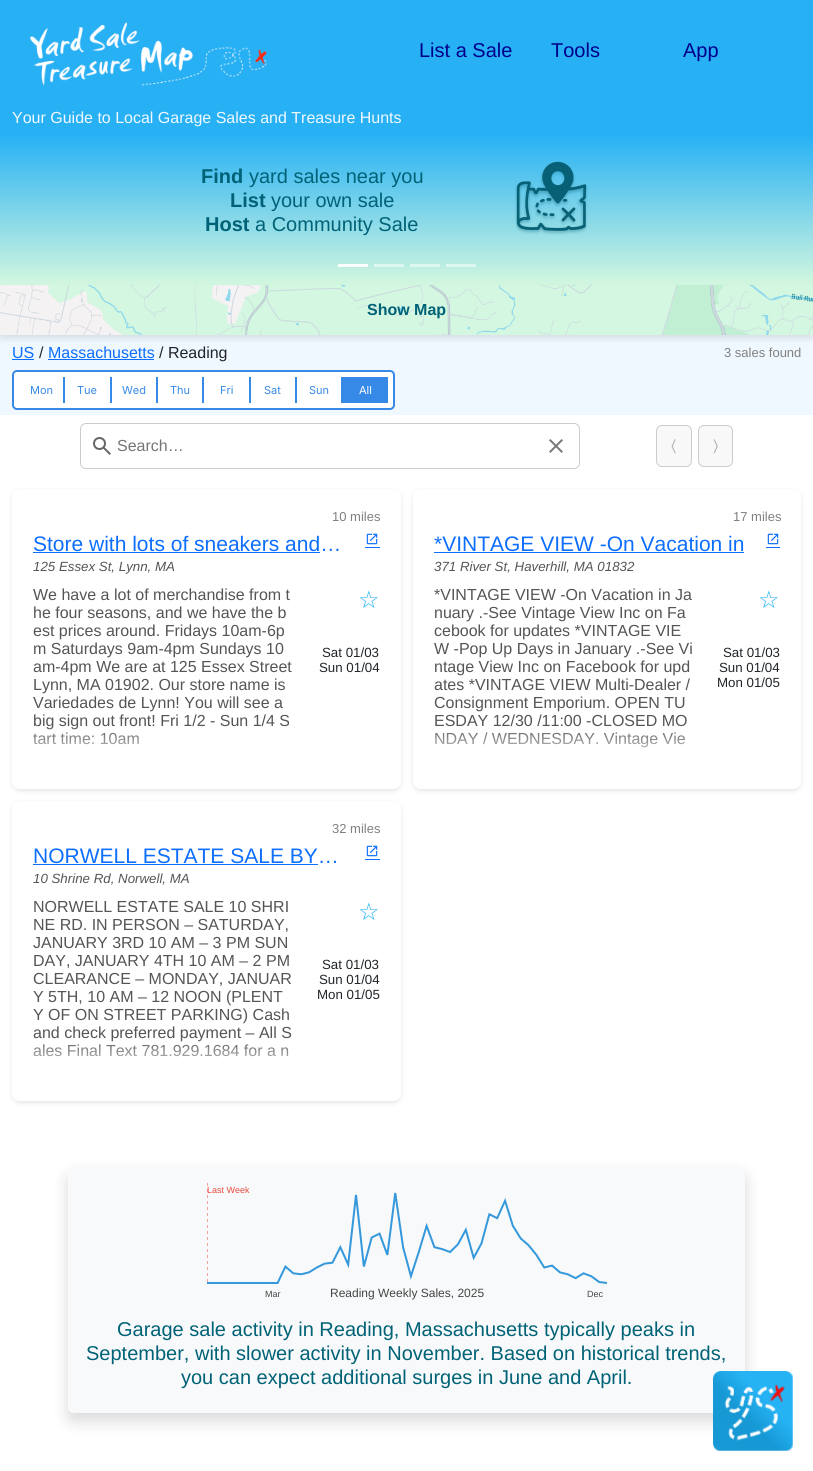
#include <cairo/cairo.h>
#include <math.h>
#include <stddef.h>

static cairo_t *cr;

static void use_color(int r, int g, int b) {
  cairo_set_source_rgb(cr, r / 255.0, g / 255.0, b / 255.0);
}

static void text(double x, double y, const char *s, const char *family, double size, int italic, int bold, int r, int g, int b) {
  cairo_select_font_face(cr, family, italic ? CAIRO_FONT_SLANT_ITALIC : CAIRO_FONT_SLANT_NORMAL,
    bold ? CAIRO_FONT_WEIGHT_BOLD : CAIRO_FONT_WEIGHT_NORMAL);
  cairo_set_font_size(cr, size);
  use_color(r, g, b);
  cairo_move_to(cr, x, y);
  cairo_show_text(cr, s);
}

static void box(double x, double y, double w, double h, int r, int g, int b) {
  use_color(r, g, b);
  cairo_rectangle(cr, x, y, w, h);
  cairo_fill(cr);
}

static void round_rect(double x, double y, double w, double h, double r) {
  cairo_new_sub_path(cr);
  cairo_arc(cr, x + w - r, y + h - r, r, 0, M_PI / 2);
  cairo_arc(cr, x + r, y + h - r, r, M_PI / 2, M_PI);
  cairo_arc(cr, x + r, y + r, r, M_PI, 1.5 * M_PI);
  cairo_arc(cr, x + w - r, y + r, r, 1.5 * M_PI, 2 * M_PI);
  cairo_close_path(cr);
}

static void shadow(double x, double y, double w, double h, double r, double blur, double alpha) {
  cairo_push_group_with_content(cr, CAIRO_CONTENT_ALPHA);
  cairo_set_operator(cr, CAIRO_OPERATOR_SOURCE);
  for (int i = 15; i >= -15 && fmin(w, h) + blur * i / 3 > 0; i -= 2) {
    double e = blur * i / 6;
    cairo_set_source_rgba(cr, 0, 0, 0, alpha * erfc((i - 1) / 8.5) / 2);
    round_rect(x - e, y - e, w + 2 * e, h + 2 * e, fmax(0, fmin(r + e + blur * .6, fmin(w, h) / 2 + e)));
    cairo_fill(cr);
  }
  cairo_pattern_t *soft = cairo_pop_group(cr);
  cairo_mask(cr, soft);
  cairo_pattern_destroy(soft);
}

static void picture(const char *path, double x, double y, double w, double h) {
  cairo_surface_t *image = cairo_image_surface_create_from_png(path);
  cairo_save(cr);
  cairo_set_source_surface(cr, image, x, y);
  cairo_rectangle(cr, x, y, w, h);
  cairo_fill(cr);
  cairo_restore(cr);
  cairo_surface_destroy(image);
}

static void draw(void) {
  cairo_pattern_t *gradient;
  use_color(255, 255, 255);
  cairo_paint(cr);
  box(0, 0, 813, 135, 39, 177, 244);
  picture("img_01.png", 30, 22, 237, 64);
  gradient = cairo_pattern_create_linear(407, 135, 407, 285);
  cairo_pattern_add_color_stop_rgba(gradient, 0, 0.153, 0.694, 0.957, 1);
  cairo_pattern_add_color_stop_rgba(gradient, 1, 0.827, 0.969, 0.875, 1);
  cairo_set_source(cr, gradient);
  cairo_pattern_destroy(gradient);
  cairo_rectangle(cr, 0, 135, 813, 150);
  cairo_fill(cr);
  gradient = cairo_pattern_create_linear(407, 135, 407, 285);
  cairo_pattern_add_color_stop_rgba(gradient, 0, 0.576, 0.847, 0.98, 1);
  cairo_pattern_add_color_stop_rgba(gradient, 1, 0.914, 0.984, 0.937, 1);
  cairo_set_source(cr, gradient);
  cairo_pattern_destroy(gradient);
  cairo_rectangle(cr, 446, 264, 30, 3);
  cairo_fill(cr);
  cairo_rectangle(cr, 410, 264, 30, 3);
  cairo_fill(cr);
  cairo_rectangle(cr, 374, 264, 30, 3);
  cairo_fill(cr);
  picture("img_02.png", 515, 161, 73, 74);
  box(338, 264, 30, 3, 255, 255, 255);
  box(0, 335, 813, 80, 240, 248, 255);
  use_color(0, 0, 0);
  shadow(0, 289, 813, 50, 0, 3, 0.1);
  picture("img_03.png", 0, 285, 813, 50);
  box(12, 359, 22, 1, 13, 110, 253);
  box(48, 359, 106, 1, 13, 110, 253);
  use_color(255, 255, 255);
  round_rect(13, 371, 381, 38, 4);
  cairo_fill_preserve(cr);
  use_color(54, 137, 230);
  cairo_stroke(cr);
  box(63, 377, 2, 26, 54, 137, 230);
  box(110, 377, 2, 26, 54, 137, 230);
  box(156, 377, 2, 26, 54, 137, 230);
  box(202, 377, 2, 26, 54, 137, 230);
  box(249, 377, 2, 26, 54, 137, 230);
  box(295, 377, 2, 26, 54, 137, 230);
  box(341, 377, 47, 26, 54, 137, 230);
  round_rect(80.5, 423.5, 499, 45, 5.5);
  use_color(204, 204, 204);
  cairo_set_line_width(cr, 1);
  cairo_stroke(cr);
  picture("img_04.png", 93, 437, 18, 18);
  picture("img_05.png", 549, 439, 14, 14);
  use_color(248, 248, 248);
  round_rect(656.5, 425.5, 35, 41, 5.5);
  cairo_fill_preserve(cr);
  use_color(204, 204, 204);
  cairo_stroke(cr);
  use_color(248, 248, 248);
  round_rect(698.5, 425.5, 34, 41, 5.5);
  cairo_fill_preserve(cr);
  use_color(204, 204, 204);
  cairo_stroke(cr);
  cairo_save(cr);
  cairo_set_fill_rule(cr, CAIRO_FILL_RULE_EVEN_ODD);
  cairo_new_path(cr);
  cairo_move_to(cr, 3, 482);
  cairo_line_to(cr, 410, 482);
  cairo_line_to(cr, 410, 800);
  cairo_line_to(cr, 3, 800);
  cairo_close_path(cr);
  cairo_move_to(cr, 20, 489);
  cairo_line_to(cr, 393, 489);
  cairo_curve_to(cr, 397.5, 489, 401, 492.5, 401, 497);
  cairo_line_to(cr, 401, 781);
  cairo_curve_to(cr, 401, 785.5, 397.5, 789, 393, 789);
  cairo_line_to(cr, 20, 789);
  cairo_curve_to(cr, 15.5, 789, 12, 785.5, 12, 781);
  cairo_line_to(cr, 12, 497);
  cairo_curve_to(cr, 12, 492.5, 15.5, 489, 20, 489);
  cairo_close_path(cr);
  cairo_clip(cr);
  use_color(0, 0, 0);
  shadow(12, 491, 389, 300, 8, 2.5, 0.1);
  cairo_restore(cr);
  box(33, 552, 287, 1, 13, 110, 253);
  picture("img_06.png", 366, 533, 12, 12);
  box(365, 547, 15, 1, 13, 110, 253);
  cairo_save(cr);
  cairo_set_fill_rule(cr, CAIRO_FILL_RULE_EVEN_ODD);
  cairo_new_path(cr);
  cairo_move_to(cr, 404, 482);
  cairo_line_to(cr, 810, 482);
  cairo_line_to(cr, 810, 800);
  cairo_line_to(cr, 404, 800);
  cairo_close_path(cr);
  cairo_move_to(cr, 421, 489);
  cairo_line_to(cr, 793, 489);
  cairo_curve_to(cr, 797.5, 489, 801, 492.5, 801, 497);
  cairo_line_to(cr, 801, 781);
  cairo_curve_to(cr, 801, 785.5, 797.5, 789, 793, 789);
  cairo_line_to(cr, 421, 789);
  cairo_curve_to(cr, 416.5, 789, 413, 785.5, 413, 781);
  cairo_line_to(cr, 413, 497);
  cairo_curve_to(cr, 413, 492.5, 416.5, 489, 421, 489);
  cairo_close_path(cr);
  cairo_clip(cr);
  use_color(0, 0, 0);
  shadow(413, 491, 388, 300, 8, 2.5, 0.1);
  cairo_restore(cr);
  box(434, 552, 310, 1, 13, 110, 253);
  picture("img_06.png", 767, 533, 12, 12);
  box(766, 547, 14, 1, 13, 110, 253);
  cairo_save(cr);
  cairo_set_fill_rule(cr, CAIRO_FILL_RULE_EVEN_ODD);
  cairo_new_path(cr);
  cairo_move_to(cr, 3, 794);
  cairo_line_to(cr, 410, 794);
  cairo_line_to(cr, 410, 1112);
  cairo_line_to(cr, 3, 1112);
  cairo_close_path(cr);
  cairo_move_to(cr, 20, 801);
  cairo_line_to(cr, 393, 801);
  cairo_curve_to(cr, 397.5, 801, 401, 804.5, 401, 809);
  cairo_line_to(cr, 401, 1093);
  cairo_curve_to(cr, 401, 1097.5, 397.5, 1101, 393, 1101);
  cairo_line_to(cr, 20, 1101);
  cairo_curve_to(cr, 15.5, 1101, 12, 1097.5, 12, 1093);
  cairo_line_to(cr, 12, 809);
  cairo_curve_to(cr, 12, 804.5, 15.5, 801, 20, 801);
  cairo_close_path(cr);
  cairo_clip(cr);
  use_color(0, 0, 0);
  shadow(12, 803, 389, 300, 8, 2.5, 0.1);
  cairo_restore(cr);
  box(33, 864, 285, 1, 13, 110, 253);
  picture("img_06.png", 366, 845, 12, 12);
  box(365, 859, 15, 1, 13, 110, 253);
  use_color(0, 0, 0);
  shadow(68, 1175, 677, 246, 6, 8, 0.15);
  use_color(248, 249, 250);
  round_rect(68, 1167, 677, 246, 6);
  cairo_fill(cr);
  picture("img_07.png", 207, 1183, 400, 101);
  picture("img_08.png", 713, 1371, 80, 80);
  text(419, 57, "List a Sale", "Liberation Sans", 20, 0, 0, 0, 0, 139);
  text(551, 57, "Tools", "Liberation Sans", 20, 0, 0, 0, 0, 139);
  text(683, 57, "App", "Liberation Sans", 20, 0, 0, 0, 0, 139);
  text(12, 123, "Your Guide to Local Garage Sales and Treasure Hunts", "Liberation Sans", 16, 0, 0, 240, 248, 255);
  text(201, 183, "Find", "Liberation Sans", 20, 0, 1, 0, 98, 119);
  text(249, 183, "yard sales near you", "Liberation Sans", 20, 0, 0, 0, 98, 119);
  text(230, 207, "List", "Liberation Sans", 20, 0, 1, 0, 98, 119);
  text(271, 207, "your own sale", "Liberation Sans", 20, 0, 0, 0, 98, 119);
  text(205, 231, "Host", "Liberation Sans", 20, 0, 1, 0, 98, 119);
  text(255, 231, "a Community Sale", "Liberation Sans", 20, 0, 0, 0, 98, 119);
  text(367, 315, "Show Map", "Liberation Sans", 16, 0, 1, 0, 98, 119);
  text(12, 358, "US", "Liberation Sans", 16, 0, 0, 13, 110, 253);
  text(39, 358, "/", "Liberation Sans", 16, 0, 0, 33, 37, 41);
  text(48, 358, "Massachusetts", "Liberation Sans", 16, 0, 0, 13, 110, 253);
  text(159, 358, "/ Reading", "Liberation Sans", 16, 0, 0, 33, 37, 41);
  text(724, 357, "3 sales found", "Liberation Sans", 13, 0, 0, 128, 128, 128);
  text(30, 394, "Mon", "Inter", 11, 0, 0, 54, 137, 230);
  text(77, 394, "Tue", "Inter", 11, 0, 0, 54, 137, 230);
  text(122, 394, "Wed", "Inter", 11, 0, 0, 54, 137, 230);
  text(170, 394, "Thu", "Inter", 11, 0, 0, 54, 137, 230);
  text(220, 394, "Fri", "Inter", 11, 0, 0, 54, 137, 230);
  text(264, 394, "Sat", "Inter", 11, 0, 0, 54, 137, 230);
  text(309, 394, "Sun", "Inter", 11, 0, 0, 54, 137, 230);
  text(359, 394, "All", "Inter", 11, 0, 0, 255, 255, 255);
  text(117, 451, "Search…", "Liberation Sans", 16, 0, 0, 117, 117, 117);
  text(671, 451, "〈", "FreeSans", 16, 0, 0, 178, 178, 178);
  text(713, 451, "〉", "FreeSans", 16, 0, 0, 178, 178, 178);
  text(332, 521, "10 miles", "Liberation Sans", 13, 0, 0, 128, 128, 128);
  text(33, 551, "Store with lots of sneakers and…", "Liberation Sans", 21, 0, 0, 13, 110, 253);
  text(33, 571, "125 Essex St, Lynn, MA", "Liberation Sans", 13.3, 1, 0, 85, 85, 85);
  text(33, 600, "We have a lot of merchandise from t", "Liberation Sans", 16, 0, 0, 85, 85, 85);
  text(33, 618, "he four seasons, and we have the b", "Liberation Sans", 16, 0, 0, 85, 85, 85);
  text(33, 636, "est prices around. Fridays 10am-6p", "Liberation Sans", 16, 0, 0, 85, 85, 85);
  text(33, 654, "m Saturdays 9am-4pm Sundays 10", "Liberation Sans", 16, 0, 0, 85, 85, 85);
  text(33, 672, "am-4pm We are at 125 Essex Street", "Liberation Sans", 16, 0, 0, 85, 85, 85);
  text(33, 690, "Lynn, MA 01902. Our store name is", "Liberation Sans", 16, 0, 0, 85, 85, 85);
  text(33, 708, "Variedades de Lynn! You will see a", "Liberation Sans", 16, 0, 0, 85, 85, 85);
  text(33, 726, "big sign out front! Fri 1/2 - Sun 1/4 S", "Liberation Sans", 16, 0, 0, 85, 85, 85);
  text(33, 744, "tart time: 10am", "Liberation Sans", 16, 0, 0, 85, 85, 85);
  gradient = cairo_pattern_create_linear(163, 726, 163, 766);
  cairo_pattern_add_color_stop_rgba(gradient, 0, 1, 1, 1, 0);
  cairo_pattern_add_color_stop_rgba(gradient, 1, 1, 1, 1, 1);
  cairo_set_source(cr, gradient);
  cairo_pattern_destroy(gradient);
  cairo_rectangle(cr, 33, 727, 106, 18);
  cairo_fill(cr);
  text(358, 608, "☆", "DejaVu Sans", 24, 0, 0, 39, 177, 244);
  text(322, 657, "Sat 01/03", "Liberation Sans", 13.3, 0, 0, 33, 37, 41);
  text(319, 672, "Sun 01/04", "Liberation Sans", 13.3, 0, 0, 33, 37, 41);
  text(733, 521, "17 miles", "Liberation Sans", 13, 0, 0, 128, 128, 128);
  text(434, 551, "*VINTAGE VIEW -On Vacation in", "Liberation Sans", 21, 0, 0, 13, 110, 253);
  text(434, 571, "371 River St, Haverhill, MA 01832", "Liberation Sans", 13.3, 1, 0, 85, 85, 85);
  text(434, 600, "*VINTAGE VIEW -On Vacation in Ja", "Liberation Sans", 16, 0, 0, 85, 85, 85);
  text(434, 618, "nuary .-See Vintage View Inc on Fa", "Liberation Sans", 16, 0, 0, 85, 85, 85);
  text(434, 636, "cebook for updates *VINTAGE VIE", "Liberation Sans", 16, 0, 0, 85, 85, 85);
  text(434, 654, "W -Pop Up Days in January .-See Vi", "Liberation Sans", 16, 0, 0, 85, 85, 85);
  text(434, 672, "ntage View Inc on Facebook for upd", "Liberation Sans", 16, 0, 0, 85, 85, 85);
  text(434, 690, "ates *VINTAGE VIEW Multi-Dealer /", "Liberation Sans", 16, 0, 0, 85, 85, 85);
  text(434, 708, "Consignment Emporium. OPEN TU", "Liberation Sans", 16, 0, 0, 85, 85, 85);
  text(434, 726, "ESDAY 12/30 /11:00 -CLOSED MO", "Liberation Sans", 16, 0, 0, 85, 85, 85);
  text(434, 744, "NDAY / WEDNESDAY. Vintage Vie", "Liberation Sans", 16, 0, 0, 85, 85, 85);
  gradient = cairo_pattern_create_linear(564, 726, 564, 766);
  cairo_pattern_add_color_stop_rgba(gradient, 0, 1, 1, 1, 0);
  cairo_pattern_add_color_stop_rgba(gradient, 1, 1, 1, 1, 1);
  cairo_set_source(cr, gradient);
  cairo_pattern_destroy(gradient);
  cairo_rectangle(cr, 434, 732, 251, 16);
  cairo_fill(cr);
  text(758, 608, "☆", "DejaVu Sans", 24, 0, 0, 39, 177, 244);
  text(723, 657, "Sat 01/03", "Liberation Sans", 13.3, 0, 0, 33, 37, 41);
  text(719, 672, "Sun 01/04", "Liberation Sans", 13.3, 0, 0, 33, 37, 41);
  text(717, 687, "Mon 01/05", "Liberation Sans", 13.3, 0, 0, 33, 37, 41);
  text(332, 833, "32 miles", "Liberation Sans", 13, 0, 0, 128, 128, 128);
  text(33, 863, "NORWELL ESTATE SALE BY…", "Liberation Sans", 21, 0, 0, 13, 110, 253);
  text(33, 883, "10 Shrine Rd, Norwell, MA", "Liberation Sans", 13.3, 1, 0, 85, 85, 85);
  text(33, 912, "NORWELL ESTATE SALE 10 SHRI", "Liberation Sans", 16, 0, 0, 85, 85, 85);
  text(33, 930, "NE RD. IN PERSON – SATURDAY,", "Liberation Sans", 16, 0, 0, 85, 85, 85);
  text(33, 948, "JANUARY 3RD 10 AM – 3 PM SUN", "Liberation Sans", 16, 0, 0, 85, 85, 85);
  text(33, 966, "DAY, JANUARY 4TH 10 AM – 2 PM", "Liberation Sans", 16, 0, 0, 85, 85, 85);
  text(33, 984, "CLEARANCE – MONDAY, JANUAR", "Liberation Sans", 16, 0, 0, 85, 85, 85);
  text(33, 1002, "Y 5TH, 10 AM – 12 NOON (PLENT", "Liberation Sans", 16, 0, 0, 85, 85, 85);
  text(33, 1020, "Y OF ON STREET PARKING) Cash", "Liberation Sans", 16, 0, 0, 85, 85, 85);
  text(33, 1038, "and check preferred payment – All S", "Liberation Sans", 16, 0, 0, 85, 85, 85);
  text(33, 1056, "ales Final Text 781.929.1684 for a n", "Liberation Sans", 16, 0, 0, 85, 85, 85);
  gradient = cairo_pattern_create_linear(163, 1038, 163, 1078);
  cairo_pattern_add_color_stop_rgba(gradient, 0, 1, 1, 1, 0);
  cairo_pattern_add_color_stop_rgba(gradient, 1, 1, 1, 1, 1);
  cairo_set_source(cr, gradient);
  cairo_pattern_destroy(gradient);
  cairo_rectangle(cr, 33, 1039, 256, 18);
  cairo_fill(cr);
  text(358, 920, "☆", "DejaVu Sans", 24, 0, 0, 39, 177, 244);
  text(322, 969, "Sat 01/03", "Liberation Sans", 13.3, 0, 0, 33, 37, 41);
  text(319, 984, "Sun 01/04", "Liberation Sans", 13.3, 0, 0, 33, 37, 41);
  text(317, 999, "Mon 01/05", "Liberation Sans", 13.3, 0, 0, 33, 37, 41);
  text(207, 1193, "Last Week", "Liberation Sans", 9, 0, 0, 231, 76, 60);
  text(265, 1297, "Mar", "Liberation Sans", 9, 0, 0, 68, 68, 68);
  text(330, 1297, "Reading Weekly Sales, 2025", "Liberation Sans", 12, 0, 0, 68, 68, 68);
  text(587, 1297, "Dec", "Liberation Sans", 9, 0, 0, 68, 68, 68);
  text(117, 1336, "Garage sale activity in Reading, Massachusetts typically peaks in", "Liberation Sans", 20, 0, 0, 0, 98, 119);
  text(86, 1360, "September, with slower activity in November. Based on historical trends,", "Liberation Sans", 20, 0, 0, 0, 98, 119);
  text(181, 1384, "you can expect additional surges in June and April.", "Liberation Sans", 20, 0, 0, 0, 98, 119);
}

int main(void) {
  cairo_surface_t *surface = cairo_image_surface_create(CAIRO_FORMAT_RGB24, 813, 1471);
  cr = cairo_create(surface);
  cairo_font_options_t *options = cairo_font_options_create();
  cairo_font_options_set_hint_metrics(options, CAIRO_HINT_METRICS_OFF);
  cairo_font_options_set_hint_style(options, CAIRO_HINT_STYLE_NONE);
  cairo_set_font_options(cr, options);
  cairo_set_miter_limit(cr, 4);
  draw();
  cairo_surface_write_to_png(surface, "out.png");
  cairo_font_options_destroy(options);
  cairo_destroy(cr);
  cairo_surface_destroy(surface);
  return 0;
}
